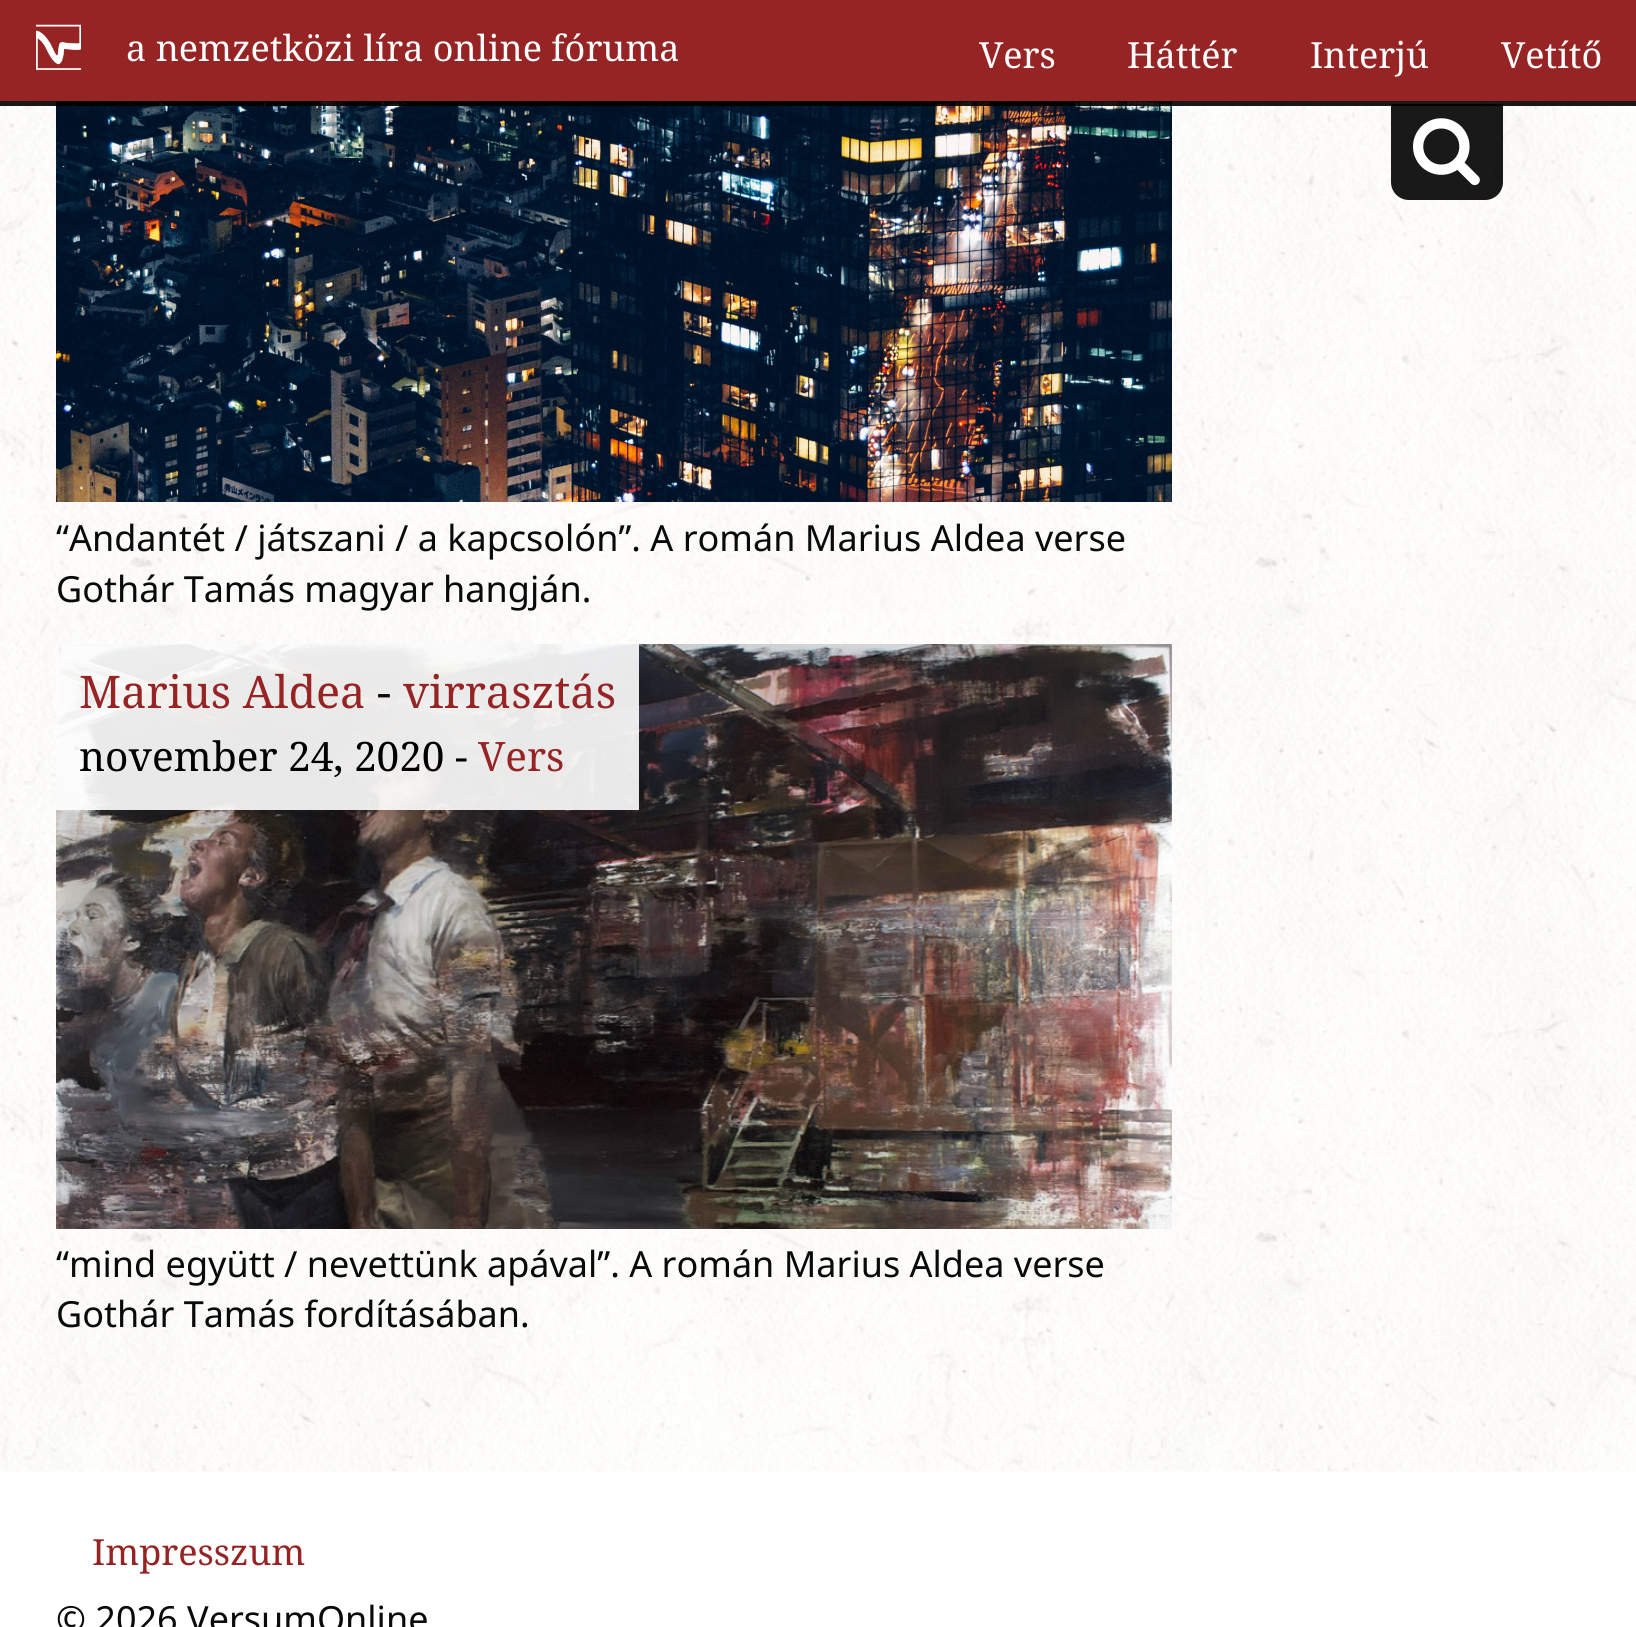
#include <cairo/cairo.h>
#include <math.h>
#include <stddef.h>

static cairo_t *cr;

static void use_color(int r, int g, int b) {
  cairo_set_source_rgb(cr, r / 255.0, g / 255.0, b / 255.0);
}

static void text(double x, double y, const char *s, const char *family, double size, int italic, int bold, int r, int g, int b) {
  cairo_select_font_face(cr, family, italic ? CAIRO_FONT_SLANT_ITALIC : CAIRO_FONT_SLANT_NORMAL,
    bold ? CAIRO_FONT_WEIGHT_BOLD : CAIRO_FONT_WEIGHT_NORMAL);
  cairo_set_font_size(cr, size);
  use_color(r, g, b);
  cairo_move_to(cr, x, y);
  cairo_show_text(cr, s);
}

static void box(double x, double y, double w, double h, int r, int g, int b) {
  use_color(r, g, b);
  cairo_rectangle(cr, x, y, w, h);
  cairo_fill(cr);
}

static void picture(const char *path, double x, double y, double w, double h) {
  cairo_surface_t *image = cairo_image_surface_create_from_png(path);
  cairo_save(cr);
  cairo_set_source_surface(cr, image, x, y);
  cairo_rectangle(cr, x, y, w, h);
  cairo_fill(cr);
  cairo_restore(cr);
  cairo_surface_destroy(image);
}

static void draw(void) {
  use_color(255, 255, 255);
  cairo_paint(cr);
  box(0, 0, 1636, 101, 150, 36, 36);
  picture("img_01.png", 36, 24, 45, 46);
  picture("img_03.png", 0, 101, 1636, 1371);
  picture("img_04.png", 56, 101, 1116, 401);
  cairo_set_source_rgba(cr, 0, 0, 0, 0.9);
  cairo_rectangle(cr, 0, 101, 1636, 5);
  cairo_fill(cr);
  cairo_new_path(cr);
  cairo_move_to(cr, 1391, 104);
  cairo_line_to(cr, 1503, 104);
  cairo_line_to(cr, 1503, 182);
  cairo_curve_to(cr, 1503, 192, 1495, 200, 1485, 200);
  cairo_line_to(cr, 1409, 200);
  cairo_curve_to(cr, 1399, 200, 1391, 192, 1391, 182);
  cairo_close_path(cr);
  cairo_fill(cr);
  picture("img_02.png", 1413, 118, 67, 68);
  picture("img_05.png", 56, 644, 1116, 585);
  cairo_set_source_rgba(cr, 1, 1, 1, 0.9);
  cairo_rectangle(cr, 56, 644, 583, 166);
  cairo_fill(cr);
  text(126, 61, "a nemzetközi líra online fóruma", "Noto Serif", 36, 0, 0, 254, 254, 254);
  text(979, 68, "Vers", "Noto Serif", 36, 0, 0, 254, 254, 254);
  text(1127, 68, "Háttér", "Noto Serif", 36, 0, 0, 254, 254, 254);
  text(1310, 68, "Interjú", "Noto Serif", 36, 0, 0, 254, 254, 254);
  text(1501, 68, "Vetítő", "Noto Serif", 36, 0, 0, 254, 254, 254);
  text(56, 551, "“Andantét / játszani / a kapcsolón”. A román Marius Aldea verse", "Noto Sans", 36, 0, 0, 10, 10, 10);
  text(56, 602, "Gothár Tamás magyar hangján.", "Noto Sans", 36, 0, 0, 10, 10, 10);
  text(79, 708, "Marius Aldea", "Noto Serif", 45, 0, 0, 150, 36, 36);
  text(377, 708, "-", "Noto Serif", 45, 0, 0, 10, 10, 10);
  text(403, 708, "virrasztás", "Noto Serif", 45, 0, 0, 150, 36, 36);
  text(79, 771, "november 24, 2020 -", "Noto Serif", 40.5, 0, 0, 0, 0, 0);
  text(478, 771, "Vers", "Noto Serif", 40.5, 0, 0, 150, 36, 36);
  text(56, 1277, "“mind együtt / nevettünk apával”. A román Marius Aldea verse", "Noto Sans", 36, 0, 0, 10, 10, 10);
  text(56, 1327, "Gothár Tamás fordításában.", "Noto Sans", 36, 0, 0, 10, 10, 10);
  text(92, 1565, "Impresszum", "Noto Serif", 36, 0, 0, 150, 36, 36);
  text(56, 1632, "© 2026 VersumOnline", "Noto Sans", 36, 0, 0, 10, 10, 10);
}

int main(void) {
  cairo_surface_t *surface = cairo_image_surface_create(CAIRO_FORMAT_RGB24, 1636, 1627);
  cr = cairo_create(surface);
  cairo_font_options_t *options = cairo_font_options_create();
  cairo_font_options_set_hint_metrics(options, CAIRO_HINT_METRICS_OFF);
  cairo_font_options_set_hint_style(options, CAIRO_HINT_STYLE_NONE);
  cairo_set_font_options(cr, options);
  cairo_set_miter_limit(cr, 4);
  draw();
  cairo_surface_write_to_png(surface, "out.png");
  cairo_font_options_destroy(options);
  cairo_destroy(cr);
  cairo_surface_destroy(surface);
  return 0;
}
